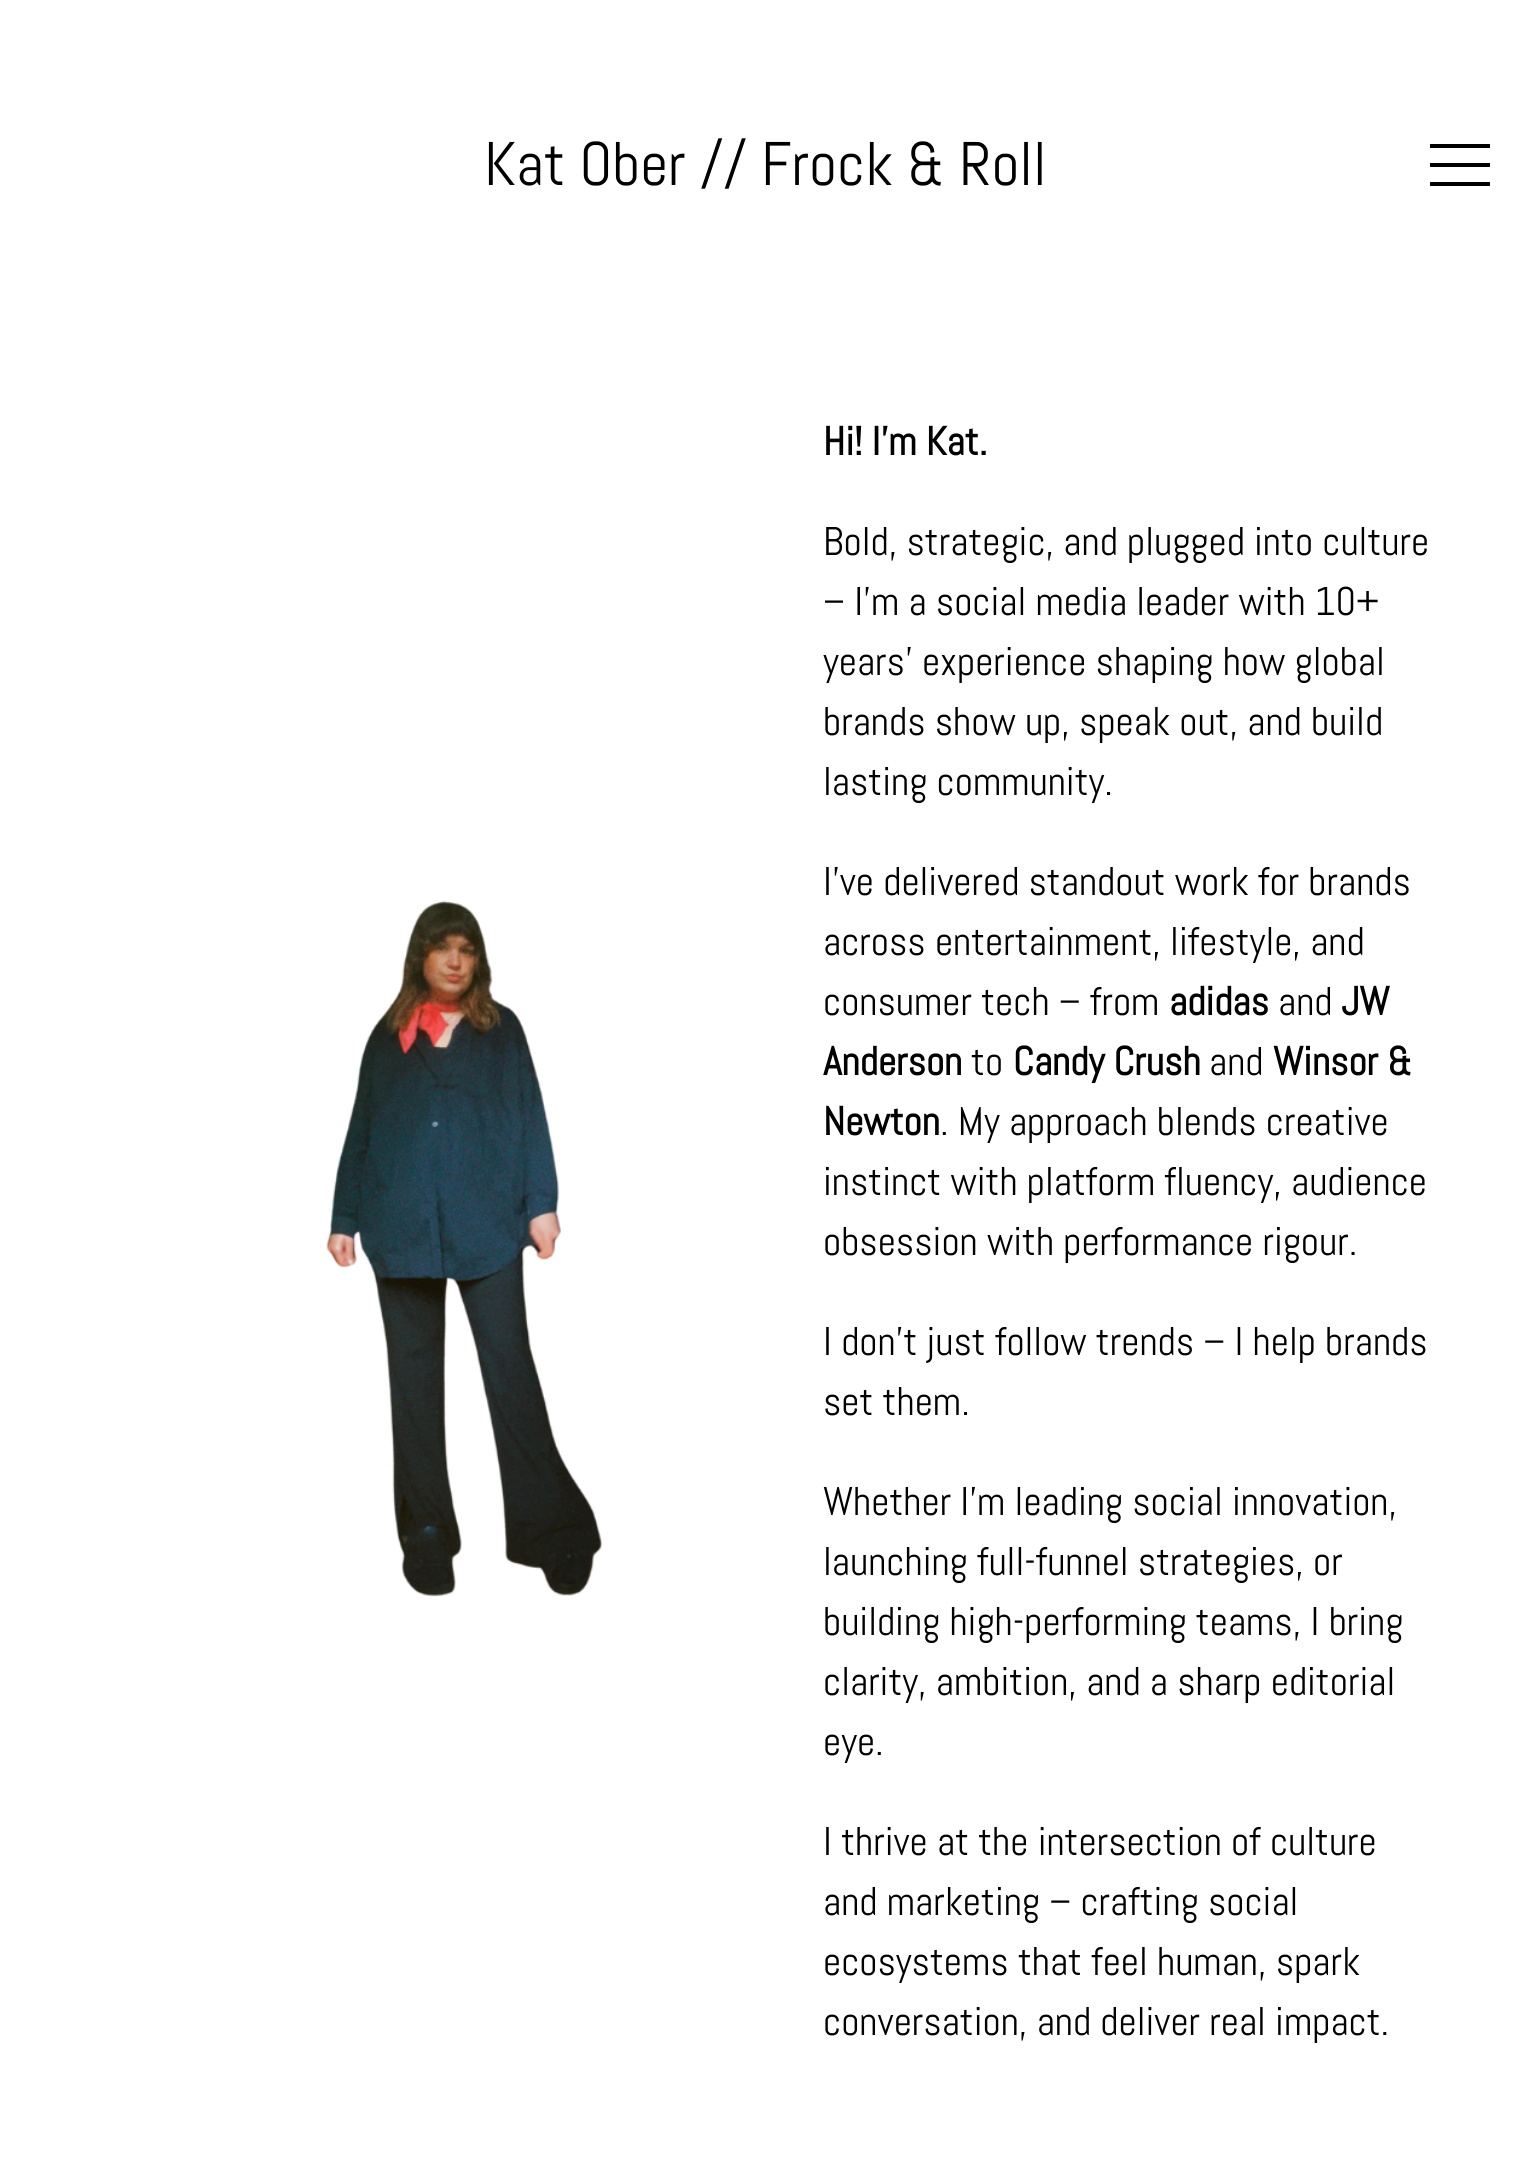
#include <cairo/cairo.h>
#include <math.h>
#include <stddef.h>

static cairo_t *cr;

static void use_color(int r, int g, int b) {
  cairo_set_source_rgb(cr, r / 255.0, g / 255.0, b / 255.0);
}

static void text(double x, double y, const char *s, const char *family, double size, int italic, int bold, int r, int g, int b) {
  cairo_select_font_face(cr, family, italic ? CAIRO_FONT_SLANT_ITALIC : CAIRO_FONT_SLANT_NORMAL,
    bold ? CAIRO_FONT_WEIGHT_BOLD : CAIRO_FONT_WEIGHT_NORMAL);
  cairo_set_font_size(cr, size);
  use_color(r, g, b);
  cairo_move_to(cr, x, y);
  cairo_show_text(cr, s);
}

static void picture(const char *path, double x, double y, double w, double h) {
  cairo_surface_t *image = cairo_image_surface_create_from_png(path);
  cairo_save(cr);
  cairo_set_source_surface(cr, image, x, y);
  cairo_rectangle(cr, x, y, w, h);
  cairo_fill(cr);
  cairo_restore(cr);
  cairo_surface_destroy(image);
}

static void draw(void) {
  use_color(255, 255, 255);
  cairo_paint(cr);
  use_color(0, 0, 0);
  cairo_new_path(cr);
  cairo_move_to(cr, 1430, 163);
  cairo_line_to(cr, 1490, 163);
  cairo_line_to(cr, 1490, 167);
  cairo_line_to(cr, 1430, 167);
  cairo_close_path(cr);
  cairo_move_to(cr, 1430, 182);
  cairo_line_to(cr, 1490, 182);
  cairo_line_to(cr, 1490, 186);
  cairo_line_to(cr, 1430, 186);
  cairo_close_path(cr);
  cairo_move_to(cr, 1430, 144);
  cairo_line_to(cr, 1490, 144);
  cairo_line_to(cr, 1490, 148);
  cairo_line_to(cr, 1430, 148);
  cairo_close_path(cr);
  cairo_fill(cr);
  picture("img_01.png", 326, 900, 276, 697);
  text(484, 185, "Kat Ober // Frock & Roll", "Abel", 61.5, 0, 0, 0, 0, 0);
  text(823, 455, "Hi! I’m Kat.", "Abel", 40, 0, 1, 0, 0, 0);
  text(823, 555, "Bold, strategic, and plugged into culture", "Abel", 40, 0, 0, 0, 0, 0);
  text(823, 615, "– I’m a social media leader with 10+", "Abel", 40, 0, 0, 0, 0, 0);
  text(823, 675, "years’ experience shaping how global", "Abel", 40, 0, 0, 0, 0, 0);
  text(823, 735, "brands show up, speak out, and build", "Abel", 40, 0, 0, 0, 0, 0);
  text(823, 795, "lasting community.", "Abel", 40, 0, 0, 0, 0, 0);
  text(823, 895, "I’ve delivered standout work for brands", "Abel", 40, 0, 0, 0, 0, 0);
  text(823, 955, "across entertainment, lifestyle, and", "Abel", 40, 0, 0, 0, 0, 0);
  text(823, 1015, "consumer tech – from", "Abel", 40, 0, 0, 0, 0, 0);
  text(1169, 1015, "adidas", "Abel", 40, 0, 1, 0, 0, 0);
  text(1278, 1015, "and", "Abel", 40, 0, 0, 0, 0, 0);
  text(1341, 1015, "JW", "Abel", 40, 0, 1, 0, 0, 0);
  text(823, 1075, "Anderson", "Abel", 40, 0, 1, 0, 0, 0);
  text(971, 1075, "to", "Abel", 40, 0, 0, 0, 0, 0);
  text(1013, 1075, "Candy Crush", "Abel", 40, 0, 1, 0, 0, 0);
  text(1209, 1075, "and", "Abel", 40, 0, 0, 0, 0, 0);
  text(1273, 1075, "Winsor &", "Abel", 40, 0, 1, 0, 0, 0);
  text(823, 1135, "Newton", "Abel", 40, 0, 1, 0, 0, 0);
  text(940, 1135, ". My approach blends creative", "Abel", 40, 0, 0, 0, 0, 0);
  text(823, 1195, "instinct with platform fluency, audience", "Abel", 40, 0, 0, 0, 0, 0);
  text(823, 1255, "obsession with performance rigour.", "Abel", 40, 0, 0, 0, 0, 0);
  text(823, 1355, "I don’t just follow trends – I help brands", "Abel", 40, 0, 0, 0, 0, 0);
  text(823, 1415, "set them.", "Abel", 40, 0, 0, 0, 0, 0);
  text(823, 1515, "Whether I’m leading social innovation,", "Abel", 40, 0, 0, 0, 0, 0);
  text(823, 1575, "launching full-funnel strategies, or", "Abel", 40, 0, 0, 0, 0, 0);
  text(823, 1635, "building high-performing teams, I bring", "Abel", 40, 0, 0, 0, 0, 0);
  text(823, 1695, "clarity, ambition, and a sharp editorial", "Abel", 40, 0, 0, 0, 0, 0);
  text(823, 1755, "eye.", "Abel", 40, 0, 0, 0, 0, 0);
  text(823, 1855, "I thrive at the intersection of culture", "Abel", 40, 0, 0, 0, 0, 0);
  text(823, 1915, "and marketing – crafting social", "Abel", 40, 0, 0, 0, 0, 0);
  text(823, 1975, "ecosystems that feel human, spark", "Abel", 40, 0, 0, 0, 0, 0);
  text(823, 2035, "conversation, and deliver real impact.", "Abel", 40, 0, 0, 0, 0, 0);
}

int main(void) {
  cairo_surface_t *surface = cairo_image_surface_create(CAIRO_FORMAT_RGB24, 1528, 2168);
  cr = cairo_create(surface);
  cairo_font_options_t *options = cairo_font_options_create();
  cairo_font_options_set_hint_metrics(options, CAIRO_HINT_METRICS_OFF);
  cairo_font_options_set_hint_style(options, CAIRO_HINT_STYLE_NONE);
  cairo_set_font_options(cr, options);
  cairo_set_miter_limit(cr, 4);
  draw();
  cairo_surface_write_to_png(surface, "out.png");
  cairo_font_options_destroy(options);
  cairo_destroy(cr);
  cairo_surface_destroy(surface);
  return 0;
}
